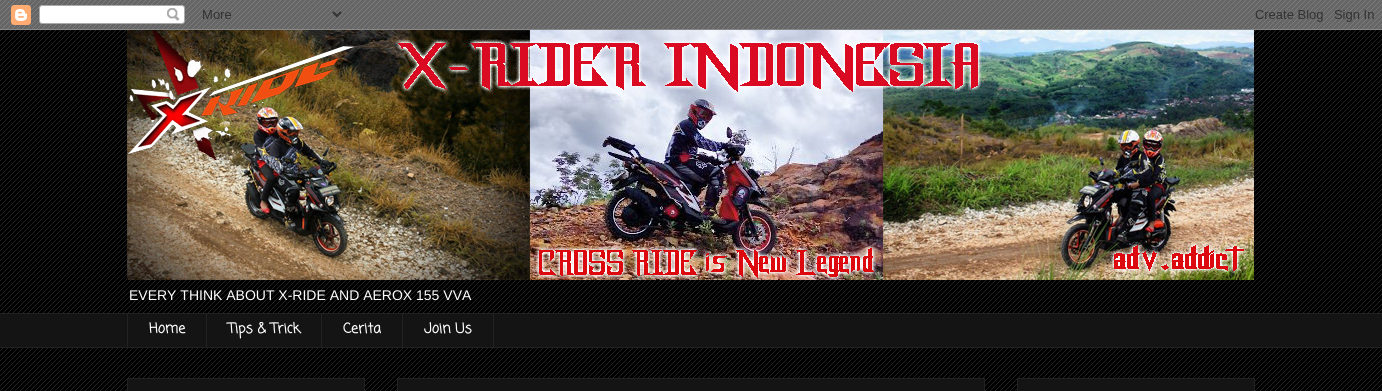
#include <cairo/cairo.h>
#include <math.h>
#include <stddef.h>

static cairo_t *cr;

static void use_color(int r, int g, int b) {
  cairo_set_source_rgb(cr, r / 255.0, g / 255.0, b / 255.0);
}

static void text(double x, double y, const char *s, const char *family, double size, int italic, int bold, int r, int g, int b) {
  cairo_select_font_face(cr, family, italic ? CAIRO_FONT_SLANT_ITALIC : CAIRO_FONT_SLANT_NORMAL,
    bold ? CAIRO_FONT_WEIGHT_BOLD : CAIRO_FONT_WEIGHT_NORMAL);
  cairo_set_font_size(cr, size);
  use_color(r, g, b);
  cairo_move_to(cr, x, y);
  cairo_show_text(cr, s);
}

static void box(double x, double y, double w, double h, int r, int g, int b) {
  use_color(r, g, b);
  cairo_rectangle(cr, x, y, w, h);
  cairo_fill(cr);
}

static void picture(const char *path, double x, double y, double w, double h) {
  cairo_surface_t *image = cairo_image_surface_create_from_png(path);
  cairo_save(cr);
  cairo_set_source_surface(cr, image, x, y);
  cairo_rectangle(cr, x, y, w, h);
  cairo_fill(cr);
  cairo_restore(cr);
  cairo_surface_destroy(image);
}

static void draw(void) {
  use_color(0, 0, 0);
  cairo_paint(cr);
  picture("img_01.png", 0, 0, 1382, 391);
  picture("img_02.png", 0, 0, 1382, 30);
  picture("img_03.png", 127, 30, 1127, 250);
  box(0, 314, 1382, 33, 20, 20, 20);
  box(0, 313, 1382, 1, 34, 34, 34);
  box(127, 313, 1, 35, 34, 34, 34);
  box(206, 313, 1, 35, 34, 34, 34);
  box(321, 313, 1, 35, 34, 34, 34);
  cairo_rectangle(cr, 402.5, 313.5, 91, 34);
  cairo_set_line_width(cr, 1);
  cairo_stroke(cr);
  box(0, 347, 1382, 1, 34, 34, 34);
  use_color(20, 20, 20);
  cairo_rectangle(cr, 127.5, 378.5, 237, 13);
  cairo_fill_preserve(cr);
  use_color(34, 34, 34);
  cairo_stroke(cr);
  use_color(20, 20, 20);
  cairo_rectangle(cr, 397.5, 378.5, 587, 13);
  cairo_fill_preserve(cr);
  use_color(34, 34, 34);
  cairo_stroke(cr);
  use_color(20, 20, 20);
  cairo_rectangle(cr, 1017.5, 378.5, 237, 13);
  cairo_fill_preserve(cr);
  use_color(34, 34, 34);
  cairo_stroke(cr);
  text(129, 300, "EVERY THINK ABOUT X-RIDE AND AEROX 155 VVA", "Liberation Sans", 14, 0, 0, 255, 255, 255);
  text(149, 333, "Home", "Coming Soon", 14, 0, 1, 255, 255, 255);
  text(228, 333, "Tips & Trick", "Coming Soon", 14, 0, 1, 255, 255, 255);
  text(343, 333, "Cerita", "Coming Soon", 14, 0, 1, 255, 255, 255);
  text(424, 333, "Join Us", "Coming Soon", 14, 0, 1, 255, 255, 255);
}

int main(void) {
  cairo_surface_t *surface = cairo_image_surface_create(CAIRO_FORMAT_RGB24, 1382, 391);
  cr = cairo_create(surface);
  cairo_font_options_t *options = cairo_font_options_create();
  cairo_font_options_set_hint_metrics(options, CAIRO_HINT_METRICS_OFF);
  cairo_font_options_set_hint_style(options, CAIRO_HINT_STYLE_NONE);
  cairo_set_font_options(cr, options);
  cairo_set_miter_limit(cr, 4);
  draw();
  cairo_surface_write_to_png(surface, "out.png");
  cairo_font_options_destroy(options);
  cairo_destroy(cr);
  cairo_surface_destroy(surface);
  return 0;
}
